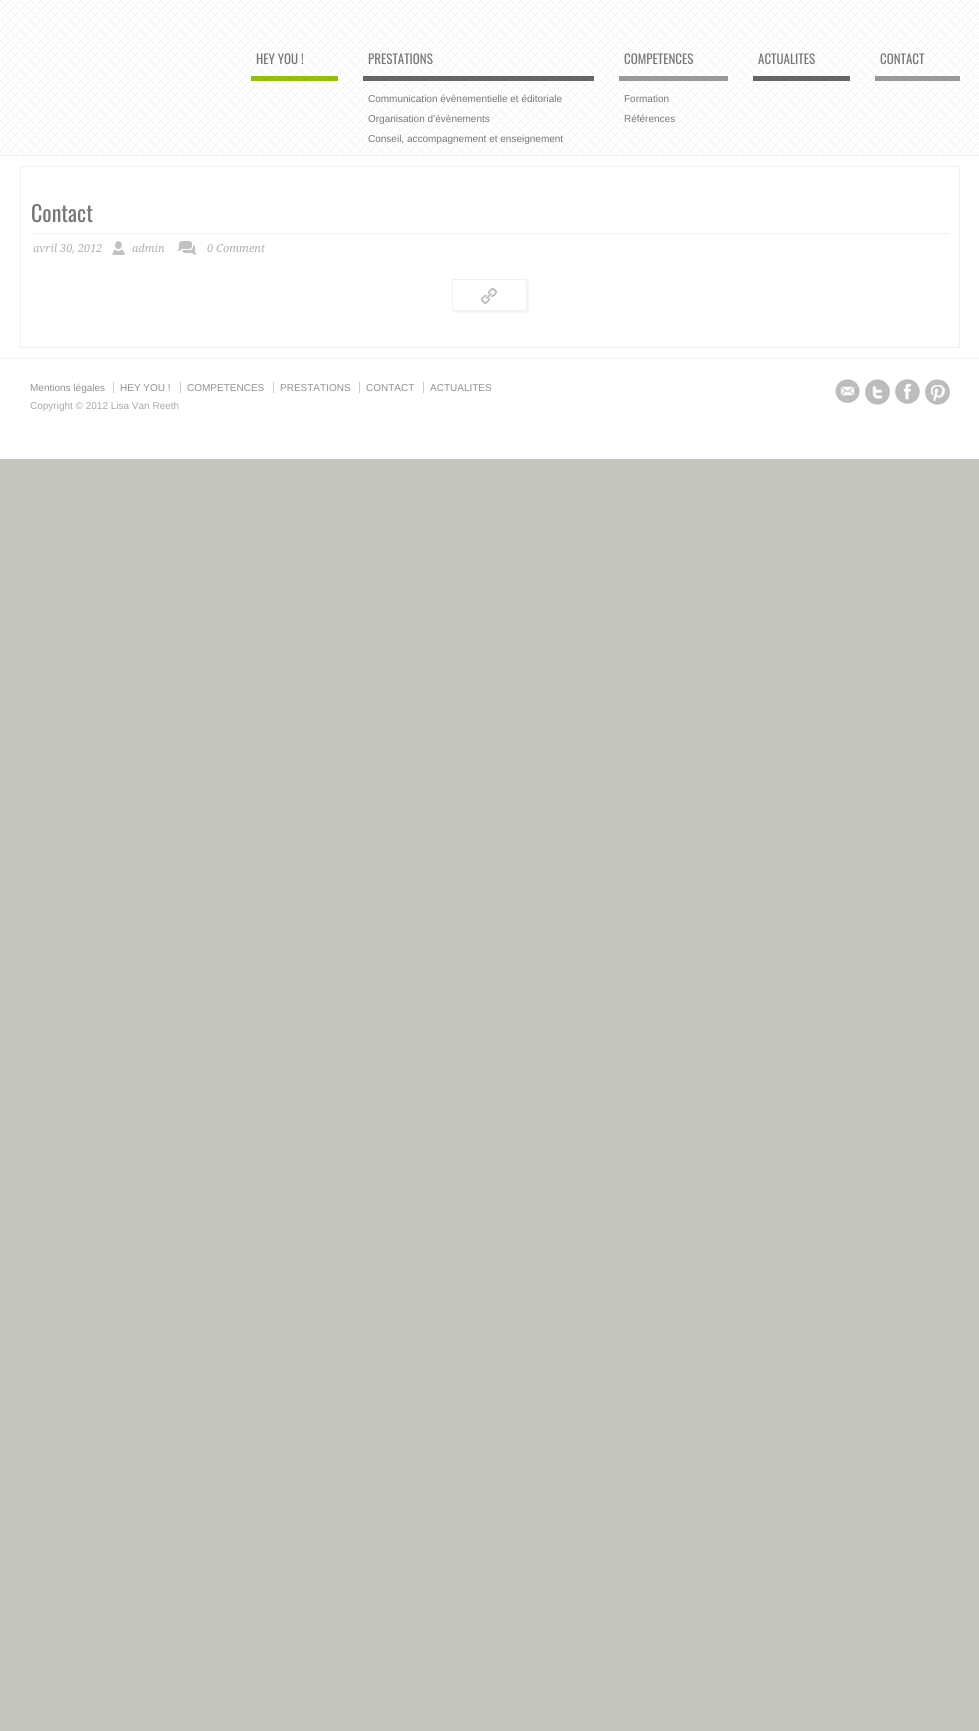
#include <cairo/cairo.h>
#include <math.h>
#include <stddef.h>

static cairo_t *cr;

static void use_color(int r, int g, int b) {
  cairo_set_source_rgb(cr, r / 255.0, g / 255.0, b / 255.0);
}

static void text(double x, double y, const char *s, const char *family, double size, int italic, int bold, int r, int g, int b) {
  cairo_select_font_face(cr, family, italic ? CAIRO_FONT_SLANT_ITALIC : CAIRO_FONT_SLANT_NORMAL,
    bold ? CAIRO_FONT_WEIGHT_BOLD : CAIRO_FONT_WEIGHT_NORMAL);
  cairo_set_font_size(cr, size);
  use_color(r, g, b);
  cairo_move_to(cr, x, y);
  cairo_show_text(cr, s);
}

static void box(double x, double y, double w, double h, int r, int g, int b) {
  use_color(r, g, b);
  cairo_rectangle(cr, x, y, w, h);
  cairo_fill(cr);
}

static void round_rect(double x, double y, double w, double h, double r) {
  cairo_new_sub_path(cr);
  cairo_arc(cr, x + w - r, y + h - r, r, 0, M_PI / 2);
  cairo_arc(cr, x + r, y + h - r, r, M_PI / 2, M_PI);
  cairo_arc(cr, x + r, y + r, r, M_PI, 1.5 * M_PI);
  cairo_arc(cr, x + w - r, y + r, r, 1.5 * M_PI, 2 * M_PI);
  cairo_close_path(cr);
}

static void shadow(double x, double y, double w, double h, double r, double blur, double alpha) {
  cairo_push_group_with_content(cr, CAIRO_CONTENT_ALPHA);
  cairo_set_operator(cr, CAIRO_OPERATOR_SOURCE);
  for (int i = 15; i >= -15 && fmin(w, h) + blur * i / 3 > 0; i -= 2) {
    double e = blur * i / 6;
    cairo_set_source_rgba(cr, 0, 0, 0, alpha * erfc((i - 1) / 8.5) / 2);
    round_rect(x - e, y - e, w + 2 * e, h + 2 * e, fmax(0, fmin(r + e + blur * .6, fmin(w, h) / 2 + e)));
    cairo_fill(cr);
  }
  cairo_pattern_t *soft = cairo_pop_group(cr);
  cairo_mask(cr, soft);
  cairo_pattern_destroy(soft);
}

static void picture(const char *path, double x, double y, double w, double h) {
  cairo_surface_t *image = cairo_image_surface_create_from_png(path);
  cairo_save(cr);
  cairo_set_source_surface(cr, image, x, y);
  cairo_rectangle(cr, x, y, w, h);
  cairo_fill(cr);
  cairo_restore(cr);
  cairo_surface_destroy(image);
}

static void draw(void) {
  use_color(197, 197, 191);
  cairo_paint(cr);
  box(0, 0, 979, 459, 255, 255, 255);
  picture("img_01.png", 0, 0, 979, 155);
  box(251, 76, 87, 5, 149, 191, 13);
  box(363, 76, 231, 5, 102, 102, 102);
  box(619, 76, 109, 5, 153, 153, 153);
  box(753, 76, 97, 5, 102, 102, 102);
  box(875, 76, 85, 5, 153, 153, 153);
  box(0, 155, 979, 1, 240, 240, 240);
  cairo_rectangle(cr, 20.5, 166.5, 939, 181);
  cairo_set_line_width(cr, 1);
  cairo_stroke(cr);
  box(31, 233, 918, 1, 240, 240, 240);
  picture("img_02.png", 112, 241, 13, 14);
  picture("img_03.png", 177, 241, 20, 14);
  cairo_save(cr);
  cairo_set_fill_rule(cr, CAIRO_FILL_RULE_EVEN_ODD);
  cairo_new_path(cr);
  cairo_move_to(cr, 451, 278);
  cairo_line_to(cr, 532, 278);
  cairo_line_to(cr, 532, 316);
  cairo_line_to(cr, 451, 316);
  cairo_close_path(cr);
  cairo_move_to(cr, 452, 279);
  cairo_line_to(cr, 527, 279);
  cairo_line_to(cr, 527, 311);
  cairo_line_to(cr, 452, 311);
  cairo_close_path(cr);
  cairo_clip(cr);
  use_color(0, 0, 0);
  shadow(454, 281, 75, 32, 0, 0.5, 0.04);
  cairo_restore(cr);
  cairo_rectangle(cr, 452.5, 279.5, 74, 31);
  cairo_stroke(cr);
  picture("img_04.png", 481, 287, 16, 17);
  box(0, 358, 979, 1, 240, 240, 240);
  box(113, 382, 1, 11, 205, 205, 205);
  box(180, 382, 1, 11, 205, 205, 205);
  box(273, 382, 1, 11, 205, 205, 205);
  box(359, 382, 1, 11, 205, 205, 205);
  box(423, 382, 1, 11, 205, 205, 205);
  picture("img_05.png", 835, 379, 25, 24);
  picture("img_06.png", 865, 379, 25, 26);
  picture("img_07.png", 895, 379, 25, 25);
  picture("img_08.png", 925, 379, 25, 26);
  text(256, 64, "HEY YOU !", "Oswald", 13, 0, 0, 119, 119, 119);
  text(368, 64, "PRESTATIONS", "Oswald", 13, 0, 0, 119, 119, 119);
  text(368, 102, "Communication évènementielle et éditoriale", "Liberation Sans", 10, 0, 0, 119, 119, 119);
  text(368, 122, "Organisation d’évènements", "Liberation Sans", 10, 0, 0, 119, 119, 119);
  text(368, 142, "Conseil, accompagnement et enseignement", "Liberation Sans", 10, 0, 0, 119, 119, 119);
  text(624, 64, "COMPETENCES", "Oswald", 13, 0, 0, 119, 119, 119);
  text(624, 102, "Formation", "Liberation Sans", 10, 0, 0, 119, 119, 119);
  text(624, 122, "Références", "Liberation Sans", 10, 0, 0, 119, 119, 119);
  text(758, 64, "ACTUALITES", "Oswald", 13, 0, 0, 119, 119, 119);
  text(880, 64, "CONTACT", "Oswald", 13, 0, 0, 119, 119, 119);
  text(31, 222, "Contact", "Oswald", 22, 0, 0, 119, 119, 119);
  text(33, 252, "avril 30, 2012", "Droid Serif", 11, 1, 0, 175, 175, 175);
  text(132, 252, "admin", "Droid Serif", 11, 1, 0, 175, 175, 175);
  text(207, 252, "0 Comment", "Droid Serif", 11, 1, 0, 175, 175, 175);
  text(30, 391, "Mentions légales", "Liberation Sans", 10, 0, 0, 145, 145, 145);
  text(120, 391, "HEY YOU !", "Liberation Sans", 10, 0, 0, 145, 145, 145);
  text(187, 391, "COMPETENCES", "Liberation Sans", 10, 0, 0, 145, 145, 145);
  text(280, 391, "PRESTATIONS", "Liberation Sans", 10, 0, 0, 145, 145, 145);
  text(366, 391, "CONTACT", "Liberation Sans", 10, 0, 0, 145, 145, 145);
  text(430, 391, "ACTUALITES", "Liberation Sans", 10, 0, 0, 145, 145, 145);
  text(30, 409, "Copyright © 2012 Lisa Van Reeth", "Liberation Sans", 10, 0, 0, 169, 169, 169);
}

int main(void) {
  cairo_surface_t *surface = cairo_image_surface_create(CAIRO_FORMAT_RGB24, 979, 1731);
  cr = cairo_create(surface);
  cairo_font_options_t *options = cairo_font_options_create();
  cairo_font_options_set_hint_metrics(options, CAIRO_HINT_METRICS_OFF);
  cairo_font_options_set_hint_style(options, CAIRO_HINT_STYLE_NONE);
  cairo_set_font_options(cr, options);
  cairo_set_miter_limit(cr, 4);
  draw();
  cairo_surface_write_to_png(surface, "out.png");
  cairo_font_options_destroy(options);
  cairo_destroy(cr);
  cairo_surface_destroy(surface);
  return 0;
}
